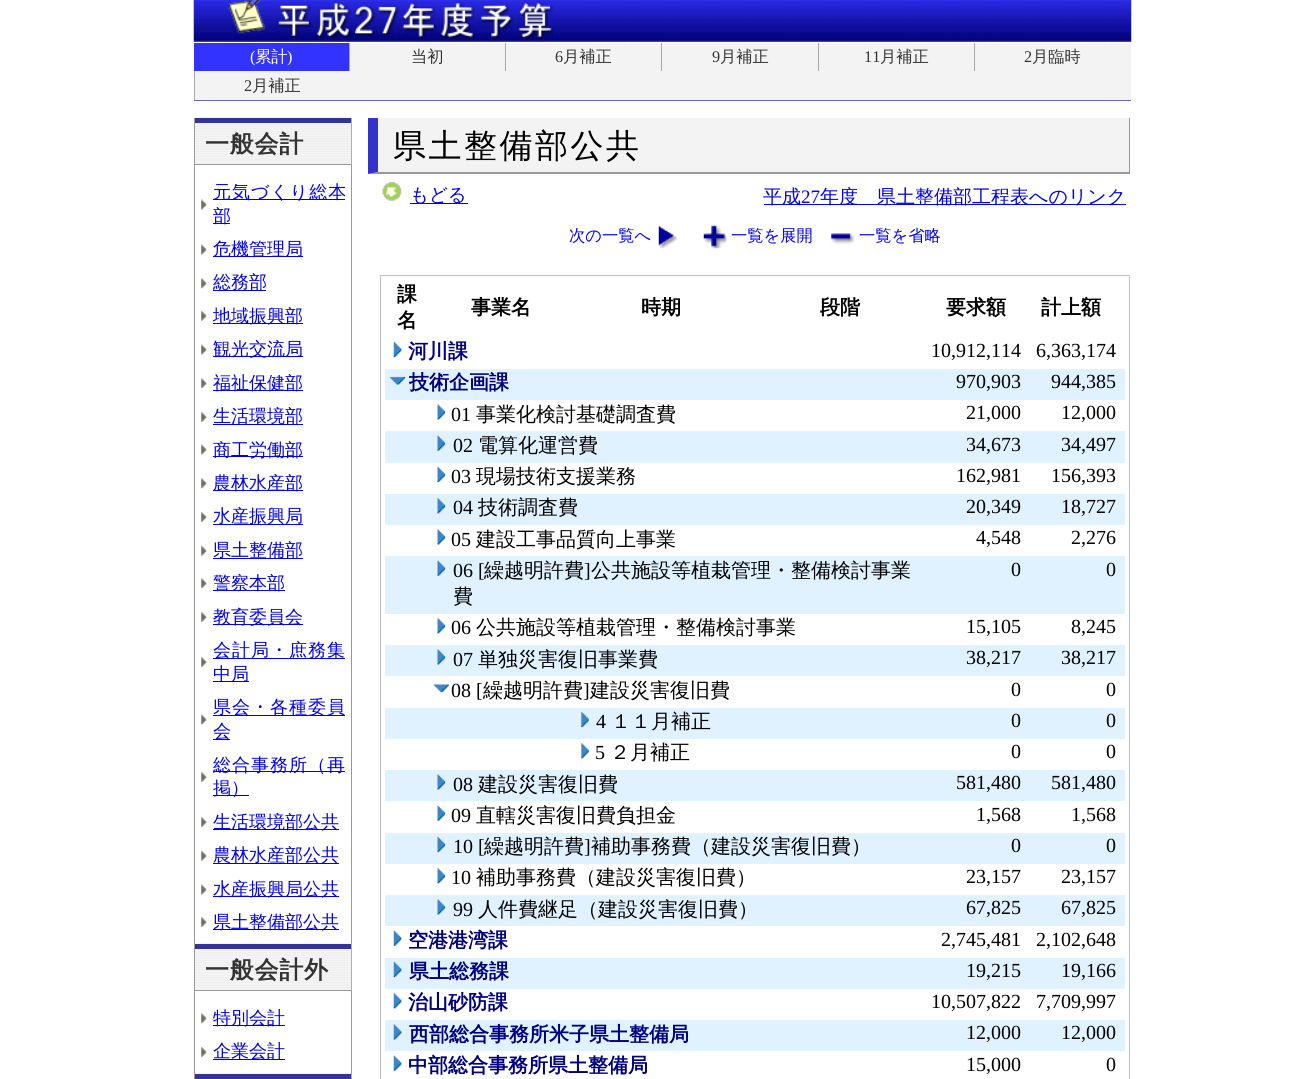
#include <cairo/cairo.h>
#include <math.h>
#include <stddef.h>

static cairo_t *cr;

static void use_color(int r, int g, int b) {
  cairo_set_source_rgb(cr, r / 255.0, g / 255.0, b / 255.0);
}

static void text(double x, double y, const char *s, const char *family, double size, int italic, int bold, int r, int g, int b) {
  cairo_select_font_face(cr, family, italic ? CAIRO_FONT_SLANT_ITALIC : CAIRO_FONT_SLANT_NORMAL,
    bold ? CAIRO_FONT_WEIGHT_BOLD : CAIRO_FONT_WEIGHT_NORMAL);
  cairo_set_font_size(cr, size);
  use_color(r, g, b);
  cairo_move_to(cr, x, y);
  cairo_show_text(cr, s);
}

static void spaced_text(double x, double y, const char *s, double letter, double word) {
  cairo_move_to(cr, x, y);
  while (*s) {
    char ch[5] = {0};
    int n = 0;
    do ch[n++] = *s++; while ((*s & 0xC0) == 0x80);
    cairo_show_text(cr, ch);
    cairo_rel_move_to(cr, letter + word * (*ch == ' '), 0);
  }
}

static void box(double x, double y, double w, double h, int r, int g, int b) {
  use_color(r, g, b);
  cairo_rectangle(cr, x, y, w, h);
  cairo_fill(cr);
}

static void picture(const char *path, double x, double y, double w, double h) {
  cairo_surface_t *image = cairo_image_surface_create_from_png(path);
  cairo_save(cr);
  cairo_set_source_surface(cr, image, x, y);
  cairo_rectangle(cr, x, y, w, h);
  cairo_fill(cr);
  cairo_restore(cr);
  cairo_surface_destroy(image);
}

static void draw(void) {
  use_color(255, 255, 255);
  cairo_paint(cr);
  picture("img_01.png", 193, 0, 939, 42);
  box(195, 43, 936, 57, 243, 243, 243);
  box(194, 100, 937, 1, 102, 102, 204);
  box(194, 43, 155, 28, 51, 51, 255);
  box(349, 43, 1, 28, 170, 170, 170);
  box(505, 43, 1, 28, 170, 170, 170);
  box(661, 43, 1, 28, 170, 170, 170);
  box(818, 43, 1, 28, 170, 170, 170);
  box(974, 43, 1, 28, 170, 170, 170);
  box(194, 71, 1, 29, 170, 170, 170);
  box(351, 118, 1, 961, 153, 153, 153);
  box(194, 118, 1, 961, 153, 153, 153);
  picture("img_02.png", 195, 117, 157, 48);
  box(195, 118, 156, 5, 51, 51, 153);
  box(195, 164, 156, 1, 153, 153, 153);
  picture("img_03.png", 201, 199, 6, 11);
  box(213, 199, 132, 1, 0, 0, 238);
  box(213, 223, 17, 1, 0, 0, 238);
  picture("img_03.png", 201, 244, 6, 11);
  box(213, 256, 90, 1, 0, 0, 238);
  picture("img_04.png", 201, 278, 6, 11);
  box(213, 290, 53, 1, 0, 0, 238);
  picture("img_05.png", 201, 310, 6, 11);
  box(213, 323, 90, 1, 0, 0, 238);
  picture("img_03.png", 201, 344, 6, 11);
  box(213, 356, 90, 1, 0, 0, 238);
  picture("img_06.png", 201, 378, 6, 11);
  box(213, 390, 90, 1, 0, 0, 238);
  picture("img_07.png", 201, 412, 6, 10);
  box(213, 424, 90, 1, 0, 0, 238);
  picture("img_03.png", 201, 444, 6, 11);
  box(213, 456, 90, 1, 0, 0, 238);
  picture("img_06.png", 201, 478, 6, 11);
  box(213, 490, 90, 1, 0, 0, 238);
  picture("img_07.png", 201, 512, 6, 10);
  box(213, 524, 90, 1, 0, 0, 238);
  picture("img_05.png", 201, 545, 6, 11);
  box(213, 558, 90, 1, 0, 0, 238);
  picture("img_06.png", 201, 578, 6, 11);
  box(213, 590, 72, 1, 0, 0, 238);
  picture("img_07.png", 201, 612, 6, 10);
  box(213, 624, 90, 1, 0, 0, 238);
  picture("img_07.png", 201, 657, 6, 10);
  box(213, 658, 132, 1, 0, 0, 238);
  box(213, 681, 36, 1, 0, 0, 238);
  picture("img_08.png", 201, 714, 6, 11);
  box(213, 715, 132, 1, 0, 0, 238);
  box(213, 739, 17, 1, 0, 0, 238);
  picture("img_07.png", 201, 772, 6, 10);
  box(213, 771, 132, 1, 0, 0, 238);
  box(213, 795, 36, 1, 0, 0, 238);
  picture("img_07.png", 201, 817, 6, 10);
  box(213, 829, 126, 1, 0, 0, 238);
  picture("img_05.png", 201, 850, 6, 11);
  box(213, 863, 126, 1, 0, 0, 238);
  picture("img_03.png", 201, 884, 6, 11);
  box(213, 896, 126, 1, 0, 0, 238);
  picture("img_07.png", 201, 917, 6, 10);
  box(213, 929, 126, 1, 0, 0, 238);
  picture("img_09.png", 195, 943, 157, 48);
  box(195, 944, 156, 5, 51, 51, 153);
  box(195, 990, 156, 1, 153, 153, 153);
  picture("img_06.png", 201, 1013, 6, 11);
  box(213, 1025, 72, 1, 0, 0, 238);
  picture("img_07.png", 201, 1047, 6, 10);
  box(213, 1059, 72, 1, 0, 0, 238);
  picture("img_10.png", 195, 1073, 157, 6);
  box(195, 1074, 156, 5, 51, 51, 153);
  box(368, 118, 761, 56, 243, 243, 243);
  box(1129, 118, 1, 56, 153, 153, 153);
  cairo_new_path(cr);
  cairo_move_to(cr, 1130, 174);
  cairo_line_to(cr, 368, 174);
  cairo_line_to(cr, 378, 172);
  cairo_line_to(cr, 1129, 172);
  cairo_close_path(cr);
  cairo_fill(cr);
  use_color(51, 51, 204);
  cairo_new_path(cr);
  cairo_move_to(cr, 368, 174);
  cairo_line_to(cr, 368, 118);
  cairo_line_to(cr, 378, 118);
  cairo_line_to(cr, 378, 172);
  cairo_close_path(cr);
  cairo_fill(cr);
  picture("img_11.png", 382, 182, 20, 19);
  box(410, 203, 58, 1, 0, 0, 238);
  box(764, 204, 362, 1, 0, 0, 238);
  picture("img_12.png", 658, 225, 20, 24);
  picture("img_13.png", 703, 225, 24, 24);
  picture("img_14.png", 831, 233, 23, 12);
  cairo_rectangle(cr, 380.5, 275.5, 749, 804);
  use_color(192, 192, 192);
  cairo_set_line_width(cr, 1);
  cairo_stroke(cr);
  picture("img_15.png", 393, 341, 9, 17);
  box(385, 369, 740, 31, 224, 241, 255);
  picture("img_16.png", 389, 376, 17, 9);
  picture("img_17.png", 437, 404, 9, 16);
  box(385, 431, 740, 32, 224, 241, 255);
  picture("img_18.png", 437, 435, 9, 16);
  picture("img_19.png", 437, 466, 9, 17);
  box(385, 494, 740, 31, 224, 241, 255);
  picture("img_20.png", 437, 498, 9, 16);
  picture("img_17.png", 437, 529, 9, 16);
  box(385, 556, 740, 58, 224, 241, 255);
  picture("img_18.png", 437, 560, 9, 16);
  picture("img_21.png", 437, 618, 9, 16);
  box(385, 645, 740, 31, 224, 241, 255);
  picture("img_22.png", 437, 649, 9, 16);
  picture("img_23.png", 433, 684, 16, 9);
  box(385, 708, 740, 31, 224, 241, 255);
  picture("img_24.png", 581, 711, 8, 17);
  picture("img_25.png", 581, 743, 8, 16);
  box(385, 770, 740, 31, 224, 241, 255);
  picture("img_22.png", 437, 774, 9, 16);
  picture("img_26.png", 437, 805, 9, 16);
  box(385, 833, 740, 31, 224, 241, 255);
  picture("img_27.png", 437, 836, 9, 17);
  picture("img_28.png", 437, 868, 9, 16);
  box(385, 895, 740, 31, 224, 241, 255);
  picture("img_22.png", 437, 899, 9, 16);
  picture("img_29.png", 393, 930, 9, 16);
  box(385, 958, 740, 31, 224, 241, 255);
  picture("img_30.png", 393, 961, 9, 17);
  picture("img_31.png", 393, 993, 9, 16);
  box(385, 1020, 740, 31, 224, 241, 255);
  picture("img_32.png", 393, 1024, 9, 16);
  picture("img_29.png", 393, 1055, 9, 16);
  text(250, 62, "(", "Liberation Serif", 16.25, 0, 0, 255, 255, 255);
  text(255, 62, "累計", "WenQuanYi Zen Hei Medium", 16.25, 0, 0, 255, 255, 255);
  text(287, 62, ")", "Liberation Serif", 16.25, 0, 0, 255, 255, 255);
  text(411, 62, "当初", "WenQuanYi Zen Hei Medium", 16.25, 0, 0, 51, 51, 51);
  text(555, 62, "6", "Liberation Serif", 16.25, 0, 0, 51, 51, 51);
  text(563, 62, "月補正", "WenQuanYi Zen Hei Medium", 16.25, 0, 0, 51, 51, 51);
  text(712, 62, "9", "Liberation Serif", 16.25, 0, 0, 51, 51, 51);
  text(720, 62, "月補正", "WenQuanYi Zen Hei Medium", 16.25, 0, 0, 51, 51, 51);
  text(864, 62, "11", "Liberation Serif", 16.25, 0, 0, 51, 51, 51);
  text(880, 62, "月補正", "WenQuanYi Zen Hei Medium", 16.25, 0, 0, 51, 51, 51);
  text(1024, 62, "2", "Liberation Serif", 16.25, 0, 0, 51, 51, 51);
  text(1032, 62, "月臨時", "WenQuanYi Zen Hei Medium", 16.25, 0, 0, 51, 51, 51);
  text(244, 91, "2", "Liberation Serif", 16.25, 0, 0, 51, 51, 51);
  text(252, 91, "月補正", "WenQuanYi Zen Hei Medium", 16.25, 0, 0, 51, 51, 51);
  cairo_select_font_face(cr, "WenQuanYi Zen Hei", CAIRO_FONT_SLANT_NORMAL, CAIRO_FONT_WEIGHT_BOLD);
  cairo_set_font_size(cr, 24);
  spaced_text(205, 152, "一般会計", 0.75, 0);
  cairo_select_font_face(cr, "WenQuanYi Zen Hei Medium", CAIRO_FONT_SLANT_NORMAL, CAIRO_FONT_WEIGHT_NORMAL);
  cairo_set_font_size(cr, 18);
  use_color(0, 0, 238);
  spaced_text(213, 198, "元気づくり総本", 1, 0);
  text(213, 222, "部", "WenQuanYi Zen Hei Medium", 18, 0, 0, 0, 0, 238);
  text(213, 255, "危機管理局", "WenQuanYi Zen Hei Medium", 18, 0, 0, 0, 0, 238);
  text(213, 288, "総務部", "WenQuanYi Zen Hei Medium", 18, 0, 0, 0, 0, 238);
  text(213, 322, "地域振興部", "WenQuanYi Zen Hei Medium", 18, 0, 0, 0, 0, 238);
  text(213, 355, "観光交流局", "WenQuanYi Zen Hei Medium", 18, 0, 0, 0, 0, 238);
  text(213, 389, "福祉保健部", "WenQuanYi Zen Hei Medium", 18, 0, 0, 0, 0, 238);
  text(213, 422, "生活環境部", "WenQuanYi Zen Hei Medium", 18, 0, 0, 0, 0, 238);
  text(213, 456, "商工労働部", "WenQuanYi Zen Hei Medium", 18, 0, 0, 0, 0, 238);
  text(213, 489, "農林水産部", "WenQuanYi Zen Hei Medium", 18, 0, 0, 0, 0, 238);
  text(213, 522, "水産振興局", "WenQuanYi Zen Hei Medium", 18, 0, 0, 0, 0, 238);
  text(213, 556, "県土整備部", "WenQuanYi Zen Hei Medium", 18, 0, 0, 0, 0, 238);
  text(213, 589, "警察本部", "WenQuanYi Zen Hei Medium", 18, 0, 0, 0, 0, 238);
  text(213, 623, "教育委員会", "WenQuanYi Zen Hei Medium", 18, 0, 0, 0, 0, 238);
  spaced_text(213, 656, "会計局・庶務集", 1, 0);
  text(213, 680, "中局", "WenQuanYi Zen Hei Medium", 18, 0, 0, 0, 0, 238);
  spaced_text(213, 713, "県会・各種委員", 1, 0);
  text(213, 737, "会", "WenQuanYi Zen Hei Medium", 18, 0, 0, 0, 0, 238);
  spaced_text(213, 771, "総合事務所（再", 1, 0);
  text(213, 794, "掲）", "WenQuanYi Zen Hei Medium", 18, 0, 0, 0, 0, 238);
  text(213, 828, "生活環境部公共", "WenQuanYi Zen Hei Medium", 18, 0, 0, 0, 0, 238);
  text(213, 861, "農林水産部公共", "WenQuanYi Zen Hei Medium", 18, 0, 0, 0, 0, 238);
  text(213, 895, "水産振興局公共", "WenQuanYi Zen Hei Medium", 18, 0, 0, 0, 0, 238);
  text(213, 928, "県土整備部公共", "WenQuanYi Zen Hei Medium", 18, 0, 0, 0, 0, 238);
  cairo_select_font_face(cr, "WenQuanYi Zen Hei", CAIRO_FONT_SLANT_NORMAL, CAIRO_FONT_WEIGHT_BOLD);
  cairo_set_font_size(cr, 24);
  use_color(51, 51, 51);
  spaced_text(205, 978, "一般会計外", 0.75, 0);
  text(213, 1024, "特別会計", "WenQuanYi Zen Hei Medium", 18, 0, 0, 0, 0, 238);
  text(213, 1057, "企業会計", "WenQuanYi Zen Hei Medium", 18, 0, 0, 0, 0, 238);
  cairo_set_font_size(cr, 33);
  use_color(0, 0, 0);
  spaced_text(393, 157, "県土整備部公共", 2.5, 0);
  text(410, 201, "もどる", "WenQuanYi Zen Hei Medium", 18.5, 0, 0, 0, 0, 238);
  text(763, 203, "平成", "WenQuanYi Zen Hei Medium", 19, 0, 0, 0, 0, 238);
  text(801, 203, "27", "Liberation Serif", 19, 0, 0, 0, 0, 238);
  text(820, 203, "年度　県土整備部工程表へのリンク", "WenQuanYi Zen Hei Medium", 19, 0, 0, 0, 0, 238);
  text(569, 241, "次の一覧へ", "WenQuanYi Zen Hei Medium", 16.25, 0, 0, 0, 0, 255);
  text(731, 241, "一覧を展開", "WenQuanYi Zen Hei Medium", 16.25, 0, 0, 0, 0, 255);
  text(859, 241, "一覧を省略", "WenQuanYi Zen Hei Medium", 16.25, 0, 0, 0, 0, 255);
  text(397, 301, "課", "WenQuanYi Zen Hei", 20, 0, 1, 0, 0, 0);
  text(397, 327, "名", "WenQuanYi Zen Hei", 20, 0, 1, 0, 0, 0);
  text(471, 314, "事業名", "WenQuanYi Zen Hei", 20, 0, 1, 0, 0, 0);
  text(641, 314, "時期", "WenQuanYi Zen Hei", 20, 0, 1, 0, 0, 0);
  text(820, 314, "段階", "WenQuanYi Zen Hei", 20, 0, 1, 0, 0, 0);
  text(946, 314, "要求額", "WenQuanYi Zen Hei", 20, 0, 1, 0, 0, 0);
  text(1041, 314, "計上額", "WenQuanYi Zen Hei", 20, 0, 1, 0, 0, 0);
  text(408, 358, "河川課", "WenQuanYi Zen Hei", 20, 0, 1, 0, 0, 128);
  text(931, 357, "10,912,114", "Liberation Serif", 20, 0, 0, 0, 0, 0);
  text(1036, 357, "6,363,174", "Liberation Serif", 20, 0, 0, 0, 0, 0);
  text(409, 389, "技術企画課", "WenQuanYi Zen Hei", 20, 0, 1, 0, 0, 128);
  text(956, 388, "970,903", "Liberation Serif", 20, 0, 0, 0, 0, 0);
  text(1051, 388, "944,385", "Liberation Serif", 20, 0, 0, 0, 0, 0);
  text(451, 421, "01", "Liberation Serif", 20, 0, 0, 0, 0, 0);
  text(476, 421, "事業化検討基礎調査費", "WenQuanYi Zen Hei Medium", 20, 0, 0, 0, 0, 0);
  text(966, 419, "21,000", "Liberation Serif", 20, 0, 0, 0, 0, 0);
  text(1061, 419, "12,000", "Liberation Serif", 20, 0, 0, 0, 0, 0);
  text(453, 452, "02", "Liberation Serif", 20, 0, 0, 0, 0, 0);
  text(478, 452, "電算化運営費", "WenQuanYi Zen Hei Medium", 20, 0, 0, 0, 0, 0);
  text(966, 451, "34,673", "Liberation Serif", 20, 0, 0, 0, 0, 0);
  text(1061, 451, "34,497", "Liberation Serif", 20, 0, 0, 0, 0, 0);
  text(451, 483, "03", "Liberation Serif", 20, 0, 0, 0, 0, 0);
  text(476, 483, "現場技術支援業務", "WenQuanYi Zen Hei Medium", 20, 0, 0, 0, 0, 0);
  text(956, 482, "162,981", "Liberation Serif", 20, 0, 0, 0, 0, 0);
  text(1051, 482, "156,393", "Liberation Serif", 20, 0, 0, 0, 0, 0);
  text(453, 514, "04", "Liberation Serif", 20, 0, 0, 0, 0, 0);
  text(478, 514, "技術調査費", "WenQuanYi Zen Hei Medium", 20, 0, 0, 0, 0, 0);
  text(966, 513, "20,349", "Liberation Serif", 20, 0, 0, 0, 0, 0);
  text(1061, 513, "18,727", "Liberation Serif", 20, 0, 0, 0, 0, 0);
  text(451, 546, "05", "Liberation Serif", 20, 0, 0, 0, 0, 0);
  text(476, 546, "建設工事品質向上事業", "WenQuanYi Zen Hei Medium", 20, 0, 0, 0, 0, 0);
  text(976, 544, "4,548", "Liberation Serif", 20, 0, 0, 0, 0, 0);
  text(1071, 544, "2,276", "Liberation Serif", 20, 0, 0, 0, 0, 0);
  text(453, 577, "06 [", "Liberation Serif", 20, 0, 0, 0, 0, 0);
  text(484, 577, "繰越明許費", "WenQuanYi Zen Hei Medium", 20, 0, 0, 0, 0, 0);
  text(584, 577, "]", "Liberation Serif", 20, 0, 0, 0, 0, 0);
  text(591, 577, "公共施設等植栽管理・整備検討事業", "WenQuanYi Zen Hei Medium", 20, 0, 0, 0, 0, 0);
  text(453, 603, "費", "WenQuanYi Zen Hei Medium", 20, 0, 0, 0, 0, 0);
  text(1011, 576, "0", "Liberation Serif", 20, 0, 0, 0, 0, 0);
  text(1106, 576, "0", "Liberation Serif", 20, 0, 0, 0, 0, 0);
  text(451, 634, "06", "Liberation Serif", 20, 0, 0, 0, 0, 0);
  text(476, 634, "公共施設等植栽管理・整備検討事業", "WenQuanYi Zen Hei Medium", 20, 0, 0, 0, 0, 0);
  text(966, 633, "15,105", "Liberation Serif", 20, 0, 0, 0, 0, 0);
  text(1071, 633, "8,245", "Liberation Serif", 20, 0, 0, 0, 0, 0);
  text(453, 666, "07", "Liberation Serif", 20, 0, 0, 0, 0, 0);
  text(478, 666, "単独災害復旧事業費", "WenQuanYi Zen Hei Medium", 20, 0, 0, 0, 0, 0);
  text(966, 664, "38,217", "Liberation Serif", 20, 0, 0, 0, 0, 0);
  text(1061, 664, "38,217", "Liberation Serif", 20, 0, 0, 0, 0, 0);
  text(451, 697, "08 [", "Liberation Serif", 20, 0, 0, 0, 0, 0);
  text(483, 697, "繰越明許費", "WenQuanYi Zen Hei Medium", 20, 0, 0, 0, 0, 0);
  text(583, 697, "]", "Liberation Serif", 20, 0, 0, 0, 0, 0);
  text(590, 697, "建設災害復旧費", "WenQuanYi Zen Hei Medium", 20, 0, 0, 0, 0, 0);
  text(1011, 696, "0", "Liberation Serif", 20, 0, 0, 0, 0, 0);
  text(1106, 696, "0", "Liberation Serif", 20, 0, 0, 0, 0, 0);
  text(596, 728, "4", "Liberation Serif", 20, 0, 0, 0, 0, 0);
  text(611, 728, "１１月補正", "WenQuanYi Zen Hei Medium", 20, 0, 0, 0, 0, 0);
  text(1011, 727, "0", "Liberation Serif", 20, 0, 0, 0, 0, 0);
  text(1106, 727, "0", "Liberation Serif", 20, 0, 0, 0, 0, 0);
  text(595, 759, "5", "Liberation Serif", 20, 0, 0, 0, 0, 0);
  text(610, 759, "２月補正", "WenQuanYi Zen Hei Medium", 20, 0, 0, 0, 0, 0);
  text(1011, 758, "0", "Liberation Serif", 20, 0, 0, 0, 0, 0);
  text(1106, 758, "0", "Liberation Serif", 20, 0, 0, 0, 0, 0);
  text(453, 791, "08", "Liberation Serif", 20, 0, 0, 0, 0, 0);
  text(478, 791, "建設災害復旧費", "WenQuanYi Zen Hei Medium", 20, 0, 0, 0, 0, 0);
  text(956, 789, "581,480", "Liberation Serif", 20, 0, 0, 0, 0, 0);
  text(1051, 789, "581,480", "Liberation Serif", 20, 0, 0, 0, 0, 0);
  text(451, 822, "09", "Liberation Serif", 20, 0, 0, 0, 0, 0);
  text(476, 822, "直轄災害復旧費負担金", "WenQuanYi Zen Hei Medium", 20, 0, 0, 0, 0, 0);
  text(976, 821, "1,568", "Liberation Serif", 20, 0, 0, 0, 0, 0);
  text(1071, 821, "1,568", "Liberation Serif", 20, 0, 0, 0, 0, 0);
  text(453, 853, "10 [", "Liberation Serif", 20, 0, 0, 0, 0, 0);
  text(484, 853, "繰越明許費", "WenQuanYi Zen Hei Medium", 20, 0, 0, 0, 0, 0);
  text(584, 853, "]", "Liberation Serif", 20, 0, 0, 0, 0, 0);
  text(591, 853, "補助事務費（建設災害復旧費）", "WenQuanYi Zen Hei Medium", 20, 0, 0, 0, 0, 0);
  text(1011, 852, "0", "Liberation Serif", 20, 0, 0, 0, 0, 0);
  text(1106, 852, "0", "Liberation Serif", 20, 0, 0, 0, 0, 0);
  text(451, 884, "10", "Liberation Serif", 20, 0, 0, 0, 0, 0);
  text(476, 884, "補助事務費（建設災害復旧費）", "WenQuanYi Zen Hei Medium", 20, 0, 0, 0, 0, 0);
  text(966, 883, "23,157", "Liberation Serif", 20, 0, 0, 0, 0, 0);
  text(1061, 883, "23,157", "Liberation Serif", 20, 0, 0, 0, 0, 0);
  text(453, 916, "99", "Liberation Serif", 20, 0, 0, 0, 0, 0);
  text(478, 916, "人件費継足（建設災害復旧費）", "WenQuanYi Zen Hei Medium", 20, 0, 0, 0, 0, 0);
  text(966, 914, "67,825", "Liberation Serif", 20, 0, 0, 0, 0, 0);
  text(1061, 914, "67,825", "Liberation Serif", 20, 0, 0, 0, 0, 0);
  text(408, 947, "空港港湾課", "WenQuanYi Zen Hei", 20, 0, 1, 0, 0, 128);
  text(941, 946, "2,745,481", "Liberation Serif", 20, 0, 0, 0, 0, 0);
  text(1036, 946, "2,102,648", "Liberation Serif", 20, 0, 0, 0, 0, 0);
  text(409, 978, "県土総務課", "WenQuanYi Zen Hei", 20, 0, 1, 0, 0, 128);
  text(966, 977, "19,215", "Liberation Serif", 20, 0, 0, 0, 0, 0);
  text(1061, 977, "19,166", "Liberation Serif", 20, 0, 0, 0, 0, 0);
  text(408, 1009, "治山砂防課", "WenQuanYi Zen Hei", 20, 0, 1, 0, 0, 128);
  text(931, 1008, "10,507,822", "Liberation Serif", 20, 0, 0, 0, 0, 0);
  text(1036, 1008, "7,709,997", "Liberation Serif", 20, 0, 0, 0, 0, 0);
  text(409, 1041, "西部総合事務所米子県土整備局", "WenQuanYi Zen Hei", 20, 0, 1, 0, 0, 128);
  text(966, 1039, "12,000", "Liberation Serif", 20, 0, 0, 0, 0, 0);
  text(1061, 1039, "12,000", "Liberation Serif", 20, 0, 0, 0, 0, 0);
  text(408, 1072, "中部総合事務所県土整備局", "WenQuanYi Zen Hei", 20, 0, 1, 0, 0, 128);
  text(966, 1071, "15,000", "Liberation Serif", 20, 0, 0, 0, 0, 0);
  text(1106, 1071, "0", "Liberation Serif", 20, 0, 0, 0, 0, 0);
}

int main(void) {
  cairo_surface_t *surface = cairo_image_surface_create(CAIRO_FORMAT_RGB24, 1304, 1079);
  cr = cairo_create(surface);
  cairo_font_options_t *options = cairo_font_options_create();
  cairo_font_options_set_hint_metrics(options, CAIRO_HINT_METRICS_OFF);
  cairo_font_options_set_hint_style(options, CAIRO_HINT_STYLE_NONE);
  cairo_set_font_options(cr, options);
  cairo_set_miter_limit(cr, 4);
  draw();
  cairo_surface_write_to_png(surface, "out.png");
  cairo_font_options_destroy(options);
  cairo_destroy(cr);
  cairo_surface_destroy(surface);
  return 0;
}
